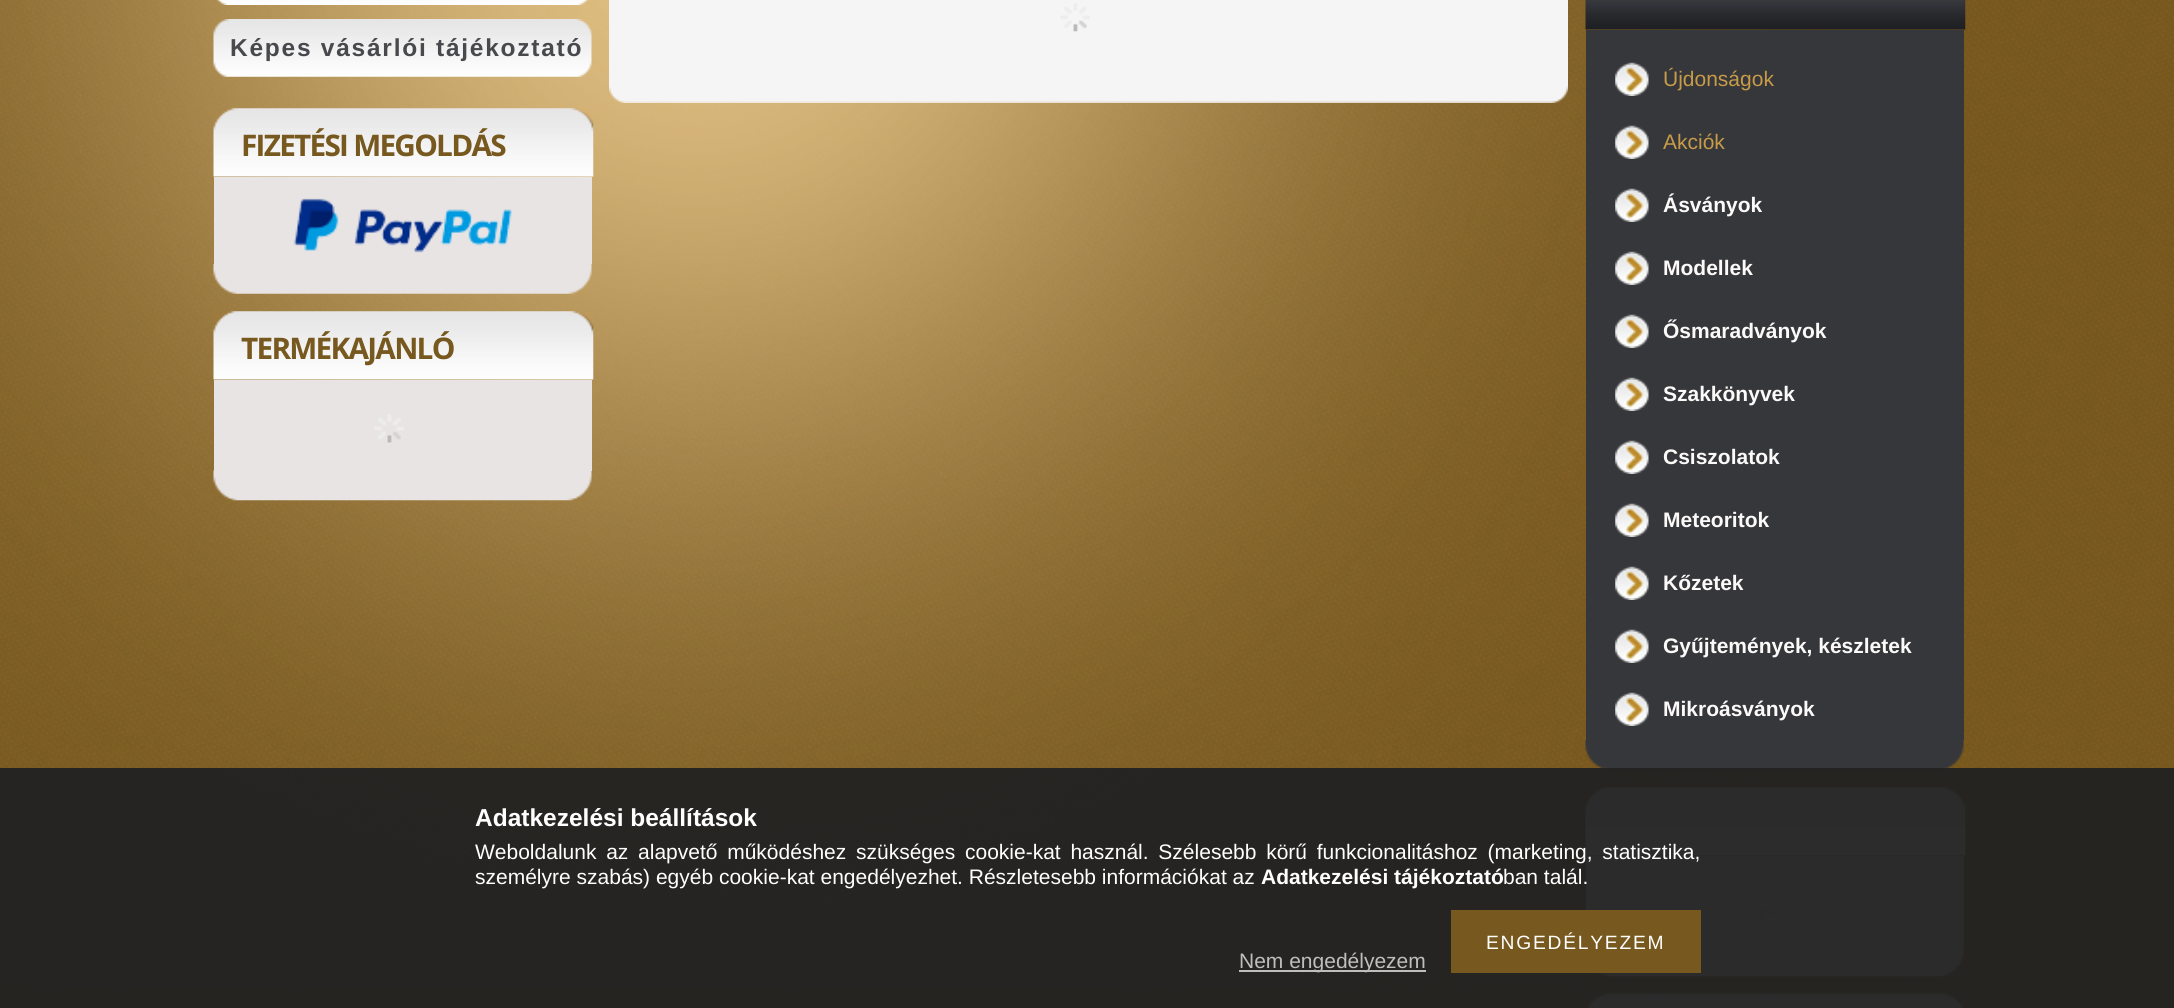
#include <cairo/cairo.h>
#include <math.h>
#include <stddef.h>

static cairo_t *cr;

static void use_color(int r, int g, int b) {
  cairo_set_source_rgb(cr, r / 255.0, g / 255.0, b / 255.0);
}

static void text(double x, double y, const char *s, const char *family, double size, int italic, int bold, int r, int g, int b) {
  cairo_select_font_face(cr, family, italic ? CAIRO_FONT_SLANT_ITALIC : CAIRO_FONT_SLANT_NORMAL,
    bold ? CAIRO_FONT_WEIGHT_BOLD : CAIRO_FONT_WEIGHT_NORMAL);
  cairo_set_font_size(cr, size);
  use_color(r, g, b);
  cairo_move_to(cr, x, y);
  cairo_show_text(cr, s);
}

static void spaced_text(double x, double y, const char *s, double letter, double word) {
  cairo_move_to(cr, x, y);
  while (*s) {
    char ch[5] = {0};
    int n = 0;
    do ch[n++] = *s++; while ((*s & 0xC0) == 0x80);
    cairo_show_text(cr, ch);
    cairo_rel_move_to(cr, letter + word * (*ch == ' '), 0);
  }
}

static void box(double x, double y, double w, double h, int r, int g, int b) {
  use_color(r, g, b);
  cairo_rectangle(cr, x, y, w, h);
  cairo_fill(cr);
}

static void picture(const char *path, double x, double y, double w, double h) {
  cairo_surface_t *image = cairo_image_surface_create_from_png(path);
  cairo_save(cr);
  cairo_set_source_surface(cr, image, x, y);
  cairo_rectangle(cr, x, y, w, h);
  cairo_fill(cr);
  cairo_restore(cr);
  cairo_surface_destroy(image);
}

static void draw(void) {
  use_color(255, 255, 255);
  cairo_paint(cr);
  picture("img_01.png", 0, 0, 2174, 1008);
  picture("img_02.png", 0, 0, 1768, 988);
  picture("img_03.png", 216, 0, 373, 5);
  picture("img_04.png", 213, 19, 379, 58);
  picture("img_05.png", 213, 108, 381, 69);
  box(214, 177, 378, 87, 233, 228, 228);
  picture("img_06.png", 293, 198, 219, 55);
  picture("img_07.png", 213, 264, 379, 30);
  picture("img_08.png", 213, 311, 381, 69);
  picture("img_10.png", 213, 470, 379, 31);
  box(214, 380, 378, 91, 233, 228, 228);
  picture("img_09.png", 374, 414, 30, 29);
  box(609, 0, 959, 77, 246, 245, 245);
  picture("img_11.png", 1060, 3, 30, 29);
  picture("img_12.png", 609, 77, 959, 26);
  picture("img_13.png", 1585, 0, 381, 30);
  box(1586, 30, 378, 710, 54, 55, 58);
  picture("img_14.png", 1615, 62, 34, 34);
  picture("img_14.png", 1615, 125, 34, 34);
  picture("img_14.png", 1615, 188, 34, 34);
  picture("img_14.png", 1615, 251, 34, 34);
  picture("img_14.png", 1615, 314, 34, 34);
  picture("img_14.png", 1615, 377, 34, 34);
  picture("img_14.png", 1615, 440, 34, 34);
  picture("img_14.png", 1615, 503, 34, 34);
  picture("img_14.png", 1615, 566, 34, 34);
  picture("img_14.png", 1615, 629, 34, 34);
  picture("img_14.png", 1615, 692, 34, 34);
  picture("img_15.png", 1585, 740, 379, 30);
  picture("img_16.png", 1585, 787, 381, 69);
  box(1586, 856, 378, 91, 233, 228, 228);
  picture("img_09.png", 1746, 890, 30, 29);
  picture("img_17.png", 1596, 947, 368, 30);
  picture("img_18.png", 1586, 993, 379, 15);
  cairo_set_source_rgba(cr, 0.133, 0.133, 0.133, 0.95);
  cairo_rectangle(cr, 0, 768, 2174, 240);
  cairo_fill(cr);
  box(1451, 910, 250, 63, 119, 88, 30);
  box(1239, 970, 187, 2, 190, 190, 189);
  cairo_select_font_face(cr, "Liberation Sans", CAIRO_FONT_SLANT_NORMAL, CAIRO_FONT_WEIGHT_BOLD);
  cairo_set_font_size(cr, 24.5);
  use_color(72, 73, 77);
  spaced_text(230, 56, "Képes vásárlói tájékoztató", 1.75, 0);
  cairo_select_font_face(cr, "Open Sans", CAIRO_FONT_SLANT_NORMAL, CAIRO_FONT_WEIGHT_BOLD);
  cairo_set_font_size(cr, 29.75);
  use_color(119, 88, 30);
  spaced_text(241, 156, "FIZETÉSI MEGOLDÁS", -1.75, 0);
  spaced_text(241, 359, "TERMÉKAJÁNLÓ", -1.75, 0);
  text(1663, 86, "Újdonságok", "Liberation Sans", 21, 0, 0, 199, 155, 73);
  text(1663, 149, "Akciók", "Liberation Sans", 21, 0, 0, 199, 155, 73);
  text(1663, 212, "Ásványok", "Liberation Sans", 21, 0, 1, 252, 249, 249);
  text(1663, 275, "Modellek", "Liberation Sans", 21, 0, 1, 252, 249, 249);
  text(1663, 338, "Ősmaradványok", "Liberation Sans", 21, 0, 1, 252, 249, 249);
  text(1663, 401, "Szakkönyvek", "Liberation Sans", 21, 0, 1, 252, 249, 249);
  text(1663, 464, "Csiszolatok", "Liberation Sans", 21, 0, 1, 252, 249, 249);
  text(1663, 527, "Meteoritok", "Liberation Sans", 21, 0, 1, 252, 249, 249);
  text(1663, 590, "Kőzetek", "Liberation Sans", 21, 0, 1, 252, 249, 249);
  text(1663, 653, "Gyűjtemények, készletek", "Liberation Sans", 21, 0, 1, 252, 249, 249);
  text(1663, 716, "Mikroásványok", "Liberation Sans", 21, 0, 1, 252, 249, 249);
  text(475, 826, "Adatkezelési beállítások", "Liberation Sans", 24.5, 0, 1, 255, 255, 255);
  cairo_select_font_face(cr, "Liberation Sans", CAIRO_FONT_SLANT_NORMAL, CAIRO_FONT_WEIGHT_NORMAL);
  cairo_set_font_size(cr, 21);
  spaced_text(475, 859, "Weboldalunk az alapvető működéshez szükséges cookie-kat használ. Szélesebb körű funkcionalitáshoz (marketing, statisztika,", 0, 3.9);
  text(475, 884, "személyre szabás) egyéb cookie-kat engedélyezhet. Részletesebb információkat az", "Liberation Sans", 21, 0, 0, 255, 255, 255);
  text(1261, 884, "Adatkezelési tájékoztató", "Liberation Sans", 21, 0, 1, 255, 255, 255);
  text(1503, 884, "ban talál.", "Liberation Sans", 21, 0, 0, 255, 255, 255);
  cairo_set_font_size(cr, 19.25);
  spaced_text(1486, 949, "ENGEDÉLYEZEM", 1.75, 0);
  text(1239, 968, "Nem engedélyezem", "Liberation Sans", 21, 0, 0, 190, 190, 189);
}

int main(void) {
  cairo_surface_t *surface = cairo_image_surface_create(CAIRO_FORMAT_RGB24, 2174, 1008);
  cr = cairo_create(surface);
  cairo_font_options_t *options = cairo_font_options_create();
  cairo_font_options_set_hint_metrics(options, CAIRO_HINT_METRICS_OFF);
  cairo_font_options_set_hint_style(options, CAIRO_HINT_STYLE_NONE);
  cairo_set_font_options(cr, options);
  cairo_set_miter_limit(cr, 4);
  draw();
  cairo_surface_write_to_png(surface, "out.png");
  cairo_font_options_destroy(options);
  cairo_destroy(cr);
  cairo_surface_destroy(surface);
  return 0;
}
